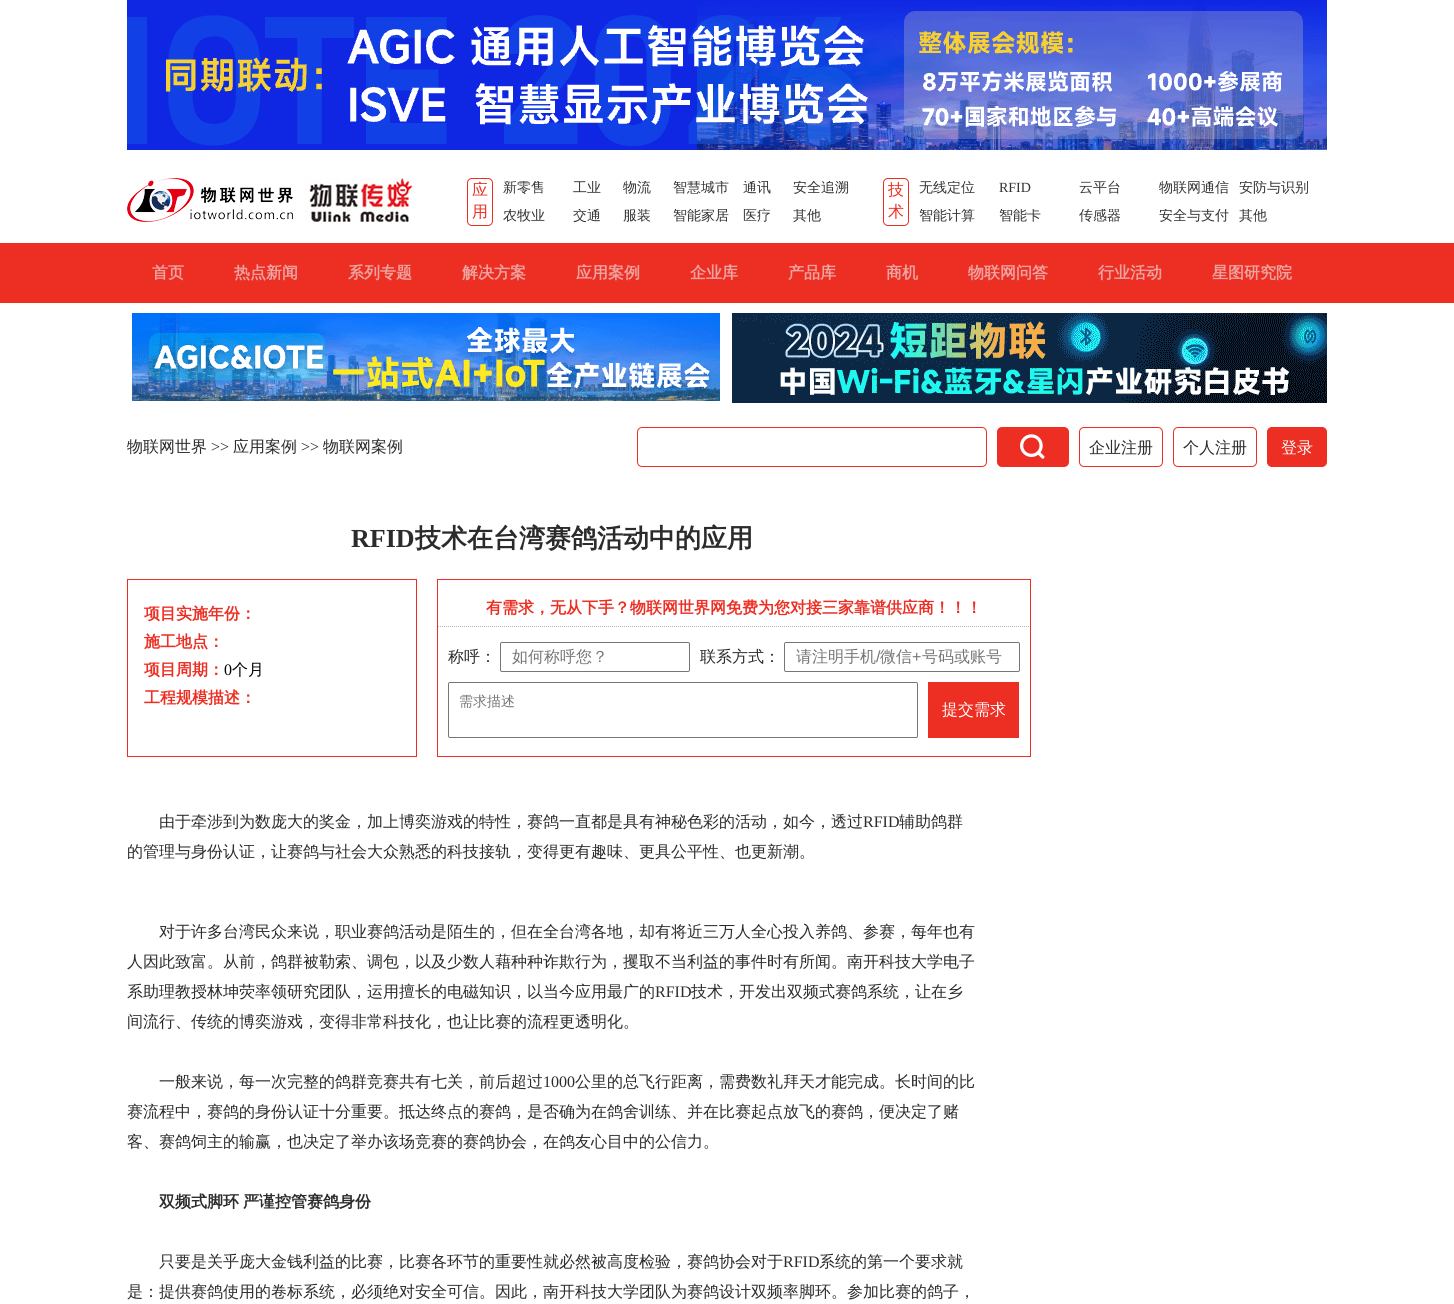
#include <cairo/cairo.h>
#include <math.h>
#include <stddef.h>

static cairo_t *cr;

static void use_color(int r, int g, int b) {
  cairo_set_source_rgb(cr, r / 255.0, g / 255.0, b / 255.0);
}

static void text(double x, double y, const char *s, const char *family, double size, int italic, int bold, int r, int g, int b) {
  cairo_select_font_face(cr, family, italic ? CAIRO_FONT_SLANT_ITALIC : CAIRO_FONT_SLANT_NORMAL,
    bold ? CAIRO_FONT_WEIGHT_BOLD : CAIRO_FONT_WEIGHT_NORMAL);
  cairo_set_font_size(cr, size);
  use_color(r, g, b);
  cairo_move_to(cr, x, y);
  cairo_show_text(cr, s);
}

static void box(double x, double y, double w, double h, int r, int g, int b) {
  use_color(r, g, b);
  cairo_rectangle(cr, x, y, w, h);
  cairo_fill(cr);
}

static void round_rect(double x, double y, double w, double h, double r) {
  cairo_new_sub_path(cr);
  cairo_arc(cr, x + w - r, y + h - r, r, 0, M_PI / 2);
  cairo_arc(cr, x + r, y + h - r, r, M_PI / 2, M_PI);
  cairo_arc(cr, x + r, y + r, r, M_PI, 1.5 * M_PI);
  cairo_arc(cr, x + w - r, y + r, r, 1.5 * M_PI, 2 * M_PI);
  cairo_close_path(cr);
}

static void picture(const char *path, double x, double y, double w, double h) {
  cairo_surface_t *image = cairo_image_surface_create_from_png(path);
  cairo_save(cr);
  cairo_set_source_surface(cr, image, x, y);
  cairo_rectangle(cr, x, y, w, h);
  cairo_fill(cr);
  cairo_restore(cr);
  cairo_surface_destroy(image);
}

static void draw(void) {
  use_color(255, 255, 255);
  cairo_paint(cr);
  picture("img_01.png", 127, 0, 1200, 150);
  picture("img_02.png", 127, 178, 166, 44);
  picture("img_03.png", 305, 178, 110, 44);
  round_rect(467.5, 178.5, 25, 47, 4.5);
  use_color(237, 46, 35);
  cairo_set_line_width(cr, 1);
  cairo_stroke(cr);
  round_rect(883.5, 178.5, 25, 47, 4.5);
  cairo_stroke(cr);
  box(0, 243, 1454, 60, 237, 47, 35);
  picture("img_04.png", 132, 313, 588, 88);
  picture("img_05.png", 732, 313, 595, 90);
  round_rect(637.5, 427.5, 349, 39, 4.5);
  use_color(237, 46, 35);
  cairo_stroke(cr);
  round_rect(997, 427, 72, 40, 5);
  cairo_fill(cr);
  picture("img_06.png", 1020, 434, 25, 25);
  round_rect(1079.5, 427.5, 83, 39, 4.5);
  cairo_stroke(cr);
  round_rect(1173.5, 427.5, 83, 39, 4.5);
  cairo_stroke(cr);
  round_rect(1267.5, 427.5, 59, 39, 4.5);
  cairo_fill_preserve(cr);
  cairo_stroke(cr);
  cairo_rectangle(cr, 127.5, 579.5, 289, 177);
  cairo_stroke(cr);
  cairo_rectangle(cr, 437.5, 579.5, 593, 177);
  cairo_stroke(cr);
  cairo_new_path(cr);
  cairo_move_to(cr, 438, 626.5);
  cairo_line_to(cr, 1030, 626.5);
  use_color(181, 181, 181);
  cairo_set_dash(cr, (double[]){1, 1}, 2, 0);
  cairo_stroke(cr);
  round_rect(500.5, 642.5, 189, 29, 1.5);
  use_color(118, 118, 118);
  cairo_set_dash(cr, NULL, 0, 0);
  cairo_stroke(cr);
  round_rect(784.5, 642.5, 235, 29, 1.5);
  cairo_stroke(cr);
  round_rect(448.5, 682.5, 469, 55, 1.5);
  cairo_stroke(cr);
  box(928, 682, 91, 56, 237, 46, 35);
  text(472, 195, "应", "WenQuanYi Zen Hei Medium", 16, 0, 0, 237, 46, 35);
  text(472, 217, "用", "WenQuanYi Zen Hei Medium", 16, 0, 0, 237, 46, 35);
  cairo_save(cr);
  cairo_rectangle(cr, 503, 181, 60, 16);
  cairo_clip(cr);
  text(503, 192, "新零售", "WenQuanYi Zen Hei Medium", 14, 0, 0, 51, 51, 51);
  cairo_restore(cr);
  cairo_save(cr);
  cairo_rectangle(cr, 573, 181, 40, 16);
  cairo_clip(cr);
  text(573, 192, "工业", "WenQuanYi Zen Hei Medium", 14, 0, 0, 51, 51, 51);
  cairo_restore(cr);
  cairo_save(cr);
  cairo_rectangle(cr, 623, 181, 40, 16);
  cairo_clip(cr);
  text(623, 192, "物流", "WenQuanYi Zen Hei Medium", 14, 0, 0, 51, 51, 51);
  cairo_restore(cr);
  cairo_save(cr);
  cairo_rectangle(cr, 673, 181, 60, 16);
  cairo_clip(cr);
  text(673, 192, "智慧城市", "WenQuanYi Zen Hei Medium", 14, 0, 0, 51, 51, 51);
  cairo_restore(cr);
  cairo_save(cr);
  cairo_rectangle(cr, 743, 181, 40, 16);
  cairo_clip(cr);
  text(743, 192, "通讯", "WenQuanYi Zen Hei Medium", 14, 0, 0, 51, 51, 51);
  cairo_restore(cr);
  cairo_save(cr);
  cairo_rectangle(cr, 793, 181, 60, 16);
  cairo_clip(cr);
  text(793, 192, "安全追溯", "WenQuanYi Zen Hei Medium", 14, 0, 0, 51, 51, 51);
  cairo_restore(cr);
  cairo_save(cr);
  cairo_rectangle(cr, 503, 209, 60, 16);
  cairo_clip(cr);
  text(503, 220, "农牧业", "WenQuanYi Zen Hei Medium", 14, 0, 0, 51, 51, 51);
  cairo_restore(cr);
  cairo_save(cr);
  cairo_rectangle(cr, 573, 209, 40, 16);
  cairo_clip(cr);
  text(573, 220, "交通", "WenQuanYi Zen Hei Medium", 14, 0, 0, 51, 51, 51);
  cairo_restore(cr);
  cairo_save(cr);
  cairo_rectangle(cr, 623, 209, 40, 16);
  cairo_clip(cr);
  text(623, 220, "服装", "WenQuanYi Zen Hei Medium", 14, 0, 0, 51, 51, 51);
  cairo_restore(cr);
  cairo_save(cr);
  cairo_rectangle(cr, 673, 209, 60, 16);
  cairo_clip(cr);
  text(673, 220, "智能家居", "WenQuanYi Zen Hei Medium", 14, 0, 0, 51, 51, 51);
  cairo_restore(cr);
  text(743, 220, "医疗", "WenQuanYi Zen Hei Medium", 14, 0, 0, 51, 51, 51);
  cairo_save(cr);
  cairo_rectangle(cr, 793, 209, 60, 16);
  cairo_clip(cr);
  text(793, 220, "其他", "WenQuanYi Zen Hei Medium", 14, 0, 0, 51, 51, 51);
  cairo_restore(cr);
  text(888, 195, "技", "WenQuanYi Zen Hei Medium", 16, 0, 0, 237, 46, 35);
  text(888, 217, "术", "WenQuanYi Zen Hei Medium", 16, 0, 0, 237, 46, 35);
  cairo_save(cr);
  cairo_rectangle(cr, 919, 181, 70, 16);
  cairo_clip(cr);
  text(919, 192, "无线定位", "WenQuanYi Zen Hei Medium", 14, 0, 0, 51, 51, 51);
  cairo_restore(cr);
  text(999, 192, "RFID", "Liberation Serif", 14, 0, 0, 51, 51, 51);
  text(1079, 192, "云平台", "WenQuanYi Zen Hei Medium", 14, 0, 0, 51, 51, 51);
  cairo_save(cr);
  cairo_rectangle(cr, 1159, 181, 70, 16);
  cairo_clip(cr);
  text(1159, 192, "物联网通信", "WenQuanYi Zen Hei Medium", 14, 0, 0, 51, 51, 51);
  cairo_restore(cr);
  cairo_save(cr);
  cairo_rectangle(cr, 1239, 181, 70, 16);
  cairo_clip(cr);
  text(1239, 192, "安防与识别", "WenQuanYi Zen Hei Medium", 14, 0, 0, 51, 51, 51);
  cairo_restore(cr);
  cairo_save(cr);
  cairo_rectangle(cr, 919, 209, 70, 16);
  cairo_clip(cr);
  text(919, 220, "智能计算", "WenQuanYi Zen Hei Medium", 14, 0, 0, 51, 51, 51);
  cairo_restore(cr);
  cairo_save(cr);
  cairo_rectangle(cr, 999, 209, 70, 16);
  cairo_clip(cr);
  text(999, 220, "智能卡", "WenQuanYi Zen Hei Medium", 14, 0, 0, 51, 51, 51);
  cairo_restore(cr);
  cairo_save(cr);
  cairo_rectangle(cr, 1079, 209, 70, 16);
  cairo_clip(cr);
  text(1079, 220, "传感器", "WenQuanYi Zen Hei Medium", 14, 0, 0, 51, 51, 51);
  cairo_restore(cr);
  cairo_save(cr);
  cairo_rectangle(cr, 1159, 209, 70, 16);
  cairo_clip(cr);
  text(1159, 220, "安全与支付", "WenQuanYi Zen Hei Medium", 14, 0, 0, 51, 51, 51);
  cairo_restore(cr);
  cairo_save(cr);
  cairo_rectangle(cr, 1239, 209, 70, 16);
  cairo_clip(cr);
  text(1239, 220, "其他", "WenQuanYi Zen Hei Medium", 14, 0, 0, 51, 51, 51);
  cairo_restore(cr);
  text(152, 278, "首页", "WenQuanYi Zen Hei", 16, 0, 1, 237, 163, 160);
  text(234, 278, "热点新闻", "WenQuanYi Zen Hei", 16, 0, 1, 237, 163, 160);
  text(348, 278, "系列专题", "WenQuanYi Zen Hei", 16, 0, 1, 237, 163, 160);
  text(462, 278, "解决方案", "WenQuanYi Zen Hei", 16, 0, 1, 237, 163, 160);
  text(576, 278, "应用案例", "WenQuanYi Zen Hei", 16, 0, 1, 237, 163, 160);
  text(690, 278, "企业库", "WenQuanYi Zen Hei", 16, 0, 1, 237, 163, 160);
  text(788, 278, "产品库", "WenQuanYi Zen Hei", 16, 0, 1, 237, 163, 160);
  text(886, 278, "商机", "WenQuanYi Zen Hei", 16, 0, 1, 237, 163, 160);
  text(968, 278, "物联网问答", "WenQuanYi Zen Hei", 16, 0, 1, 237, 163, 160);
  text(1098, 278, "行业活动", "WenQuanYi Zen Hei", 16, 0, 1, 237, 163, 160);
  text(1212, 278, "星图研究院", "WenQuanYi Zen Hei", 16, 0, 1, 237, 163, 160);
  text(127, 452, "物联网世界", "WenQuanYi Zen Hei Medium", 16, 0, 0, 43, 43, 43);
  text(211, 452, ">>", "Liberation Serif", 16, 0, 0, 43, 43, 43);
  text(233, 452, "应用案例", "WenQuanYi Zen Hei Medium", 16, 0, 0, 43, 43, 43);
  text(301, 452, ">>", "Liberation Serif", 16, 0, 0, 43, 43, 43);
  text(323, 452, "物联网案例", "WenQuanYi Zen Hei Medium", 16, 0, 0, 43, 43, 43);
  text(1089, 453, "企业注册", "WenQuanYi Zen Hei Medium", 16, 0, 0, 43, 43, 43);
  text(1183, 453, "个人注册", "WenQuanYi Zen Hei Medium", 16, 0, 0, 43, 43, 43);
  text(1281, 453, "登录", "WenQuanYi Zen Hei Medium", 16, 0, 0, 255, 255, 255);
  text(351, 547, "RFID", "Liberation Serif", 26, 0, 1, 43, 43, 43);
  text(415, 547, "技术在台湾赛鸽活动中的应用", "WenQuanYi Zen Hei", 26, 0, 1, 43, 43, 43);
  text(144, 619, "项目实施年份：", "WenQuanYi Zen Hei", 16, 0, 1, 237, 46, 35);
  text(144, 647, "施工地点：", "WenQuanYi Zen Hei", 16, 0, 1, 237, 46, 35);
  text(144, 675, "项目周期：", "WenQuanYi Zen Hei", 16, 0, 1, 237, 46, 35);
  text(224, 675, "0", "Liberation Serif", 16, 0, 0, 0, 0, 0);
  text(232, 675, "个月", "WenQuanYi Zen Hei Medium", 16, 0, 0, 0, 0, 0);
  text(144, 703, "工程规模描述：", "WenQuanYi Zen Hei", 16, 0, 1, 237, 46, 35);
  text(486, 613, "有需求，无从下手？物联网世界网免费为您对接三家靠谱供应商！！！", "WenQuanYi Zen Hei", 16, 0, 1, 237, 46, 35);
  text(448, 662, "称呼：", "WenQuanYi Zen Hei Medium", 16, 0, 0, 43, 43, 43);
  text(512, 662, "如何称呼您？", "WenQuanYi Zen Hei Medium", 16, 0, 0, 117, 117, 117);
  text(700, 662, "联系方式：", "WenQuanYi Zen Hei Medium", 16, 0, 0, 43, 43, 43);
  text(796, 662, "请注明手机", "WenQuanYi Zen Hei Medium", 16, 0, 0, 117, 117, 117);
  text(876, 662, "/", "Liberation Sans", 16, 0, 0, 117, 117, 117);
  text(880, 662, "微信", "WenQuanYi Zen Hei Medium", 16, 0, 0, 117, 117, 117);
  text(912, 662, "+", "Liberation Sans", 16, 0, 0, 117, 117, 117);
  text(922, 662, "号码或账号", "WenQuanYi Zen Hei Medium", 16, 0, 0, 117, 117, 117);
  text(459, 706, "需求描述", "WenQuanYi Zen Hei Medium", 14, 0, 0, 117, 117, 117);
  text(942, 715, "提交需求", "WenQuanYi Zen Hei Medium", 16, 0, 0, 255, 255, 255);
  text(159, 827, "由于牵涉到为数庞大的奖金，加上博奕游戏的特性，赛鸽一直都是具有神秘色彩的活动，如今，透过", "WenQuanYi Zen Hei Medium", 16, 0, 0, 43, 43, 43);
  text(863, 827, "RFID", "Liberation Serif", 16, 0, 0, 43, 43, 43);
  text(899, 827, "辅助鸽群", "WenQuanYi Zen Hei Medium", 16, 0, 0, 43, 43, 43);
  text(127, 857, "的管理与身份认证，让赛鸽与社会大众熟悉的科技接轨，变得更有趣味、更具公平性、也更新潮。", "WenQuanYi Zen Hei Medium", 16, 0, 0, 43, 43, 43);
  text(159, 937, "对于许多台湾民众来说，职业赛鸽活动是陌生的，但在全台湾各地，却有将近三万人全心投入养鸽、参赛，每年也有", "WenQuanYi Zen Hei Medium", 16, 0, 0, 43, 43, 43);
  text(127, 967, "人因此致富。从前，鸽群被勒索、调包，以及少数人藉种种诈欺行为，攫取不当利益的事件时有所闻。南开科技大学电子", "WenQuanYi Zen Hei Medium", 16, 0, 0, 43, 43, 43);
  text(127, 997, "系助理教授林坤荧率领研究团队，运用擅长的电磁知识，以当今应用最广的", "WenQuanYi Zen Hei Medium", 16, 0, 0, 43, 43, 43);
  text(655, 997, "RFID", "Liberation Serif", 16, 0, 0, 43, 43, 43);
  text(691, 997, "技术，开发出双频式赛鸽系统，让在乡", "WenQuanYi Zen Hei Medium", 16, 0, 0, 43, 43, 43);
  text(127, 1027, "间流行、传统的博奕游戏，变得非常科技化，也让比赛的流程更透明化。", "WenQuanYi Zen Hei Medium", 16, 0, 0, 43, 43, 43);
  text(159, 1087, "一般来说，每一次完整的鸽群竞赛共有七关，前后超过", "WenQuanYi Zen Hei Medium", 16, 0, 0, 43, 43, 43);
  text(543, 1087, "1000", "Liberation Serif", 16, 0, 0, 43, 43, 43);
  text(575, 1087, "公里的总飞行距离，需费数礼拜天才能完成。长时间的比", "WenQuanYi Zen Hei Medium", 16, 0, 0, 43, 43, 43);
  text(127, 1117, "赛流程中，赛鸽的身份认证十分重要。抵达终点的赛鸽，是否确为在鸽舍训练、并在比赛起点放飞的赛鸽，便决定了赌", "WenQuanYi Zen Hei Medium", 16, 0, 0, 43, 43, 43);
  text(127, 1147, "客、赛鸽饲主的输赢，也决定了举办该场竞赛的赛鸽协会，在鸽友心目中的公信力。", "WenQuanYi Zen Hei Medium", 16, 0, 0, 43, 43, 43);
  text(159, 1207, "双频式脚环", "WenQuanYi Zen Hei", 16, 0, 1, 43, 43, 43);
  text(243, 1207, "严谨控管赛鸽身份", "WenQuanYi Zen Hei", 16, 0, 1, 43, 43, 43);
  text(159, 1267, "只要是关乎庞大金钱利益的比赛，比赛各环节的重要性就必然被高度检验，赛鸽协会对于", "WenQuanYi Zen Hei Medium", 16, 0, 0, 43, 43, 43);
  text(783, 1267, "RFID", "Liberation Serif", 16, 0, 0, 43, 43, 43);
  text(819, 1267, "系统的第一个要求就", "WenQuanYi Zen Hei Medium", 16, 0, 0, 43, 43, 43);
  text(127, 1297, "是：提供赛鸽使用的卷标系统，必须绝对安全可信。因此，南开科技大学团队为赛鸽设计双频率脚环。参加比赛的鸽子，", "WenQuanYi Zen Hei Medium", 16, 0, 0, 43, 43, 43);
}

int main(void) {
  cairo_surface_t *surface = cairo_image_surface_create(CAIRO_FORMAT_RGB24, 1454, 1304);
  cr = cairo_create(surface);
  cairo_font_options_t *options = cairo_font_options_create();
  cairo_font_options_set_hint_metrics(options, CAIRO_HINT_METRICS_OFF);
  cairo_font_options_set_hint_style(options, CAIRO_HINT_STYLE_NONE);
  cairo_set_font_options(cr, options);
  cairo_set_miter_limit(cr, 4);
  draw();
  cairo_surface_write_to_png(surface, "out.png");
  cairo_font_options_destroy(options);
  cairo_destroy(cr);
  cairo_surface_destroy(surface);
  return 0;
}
